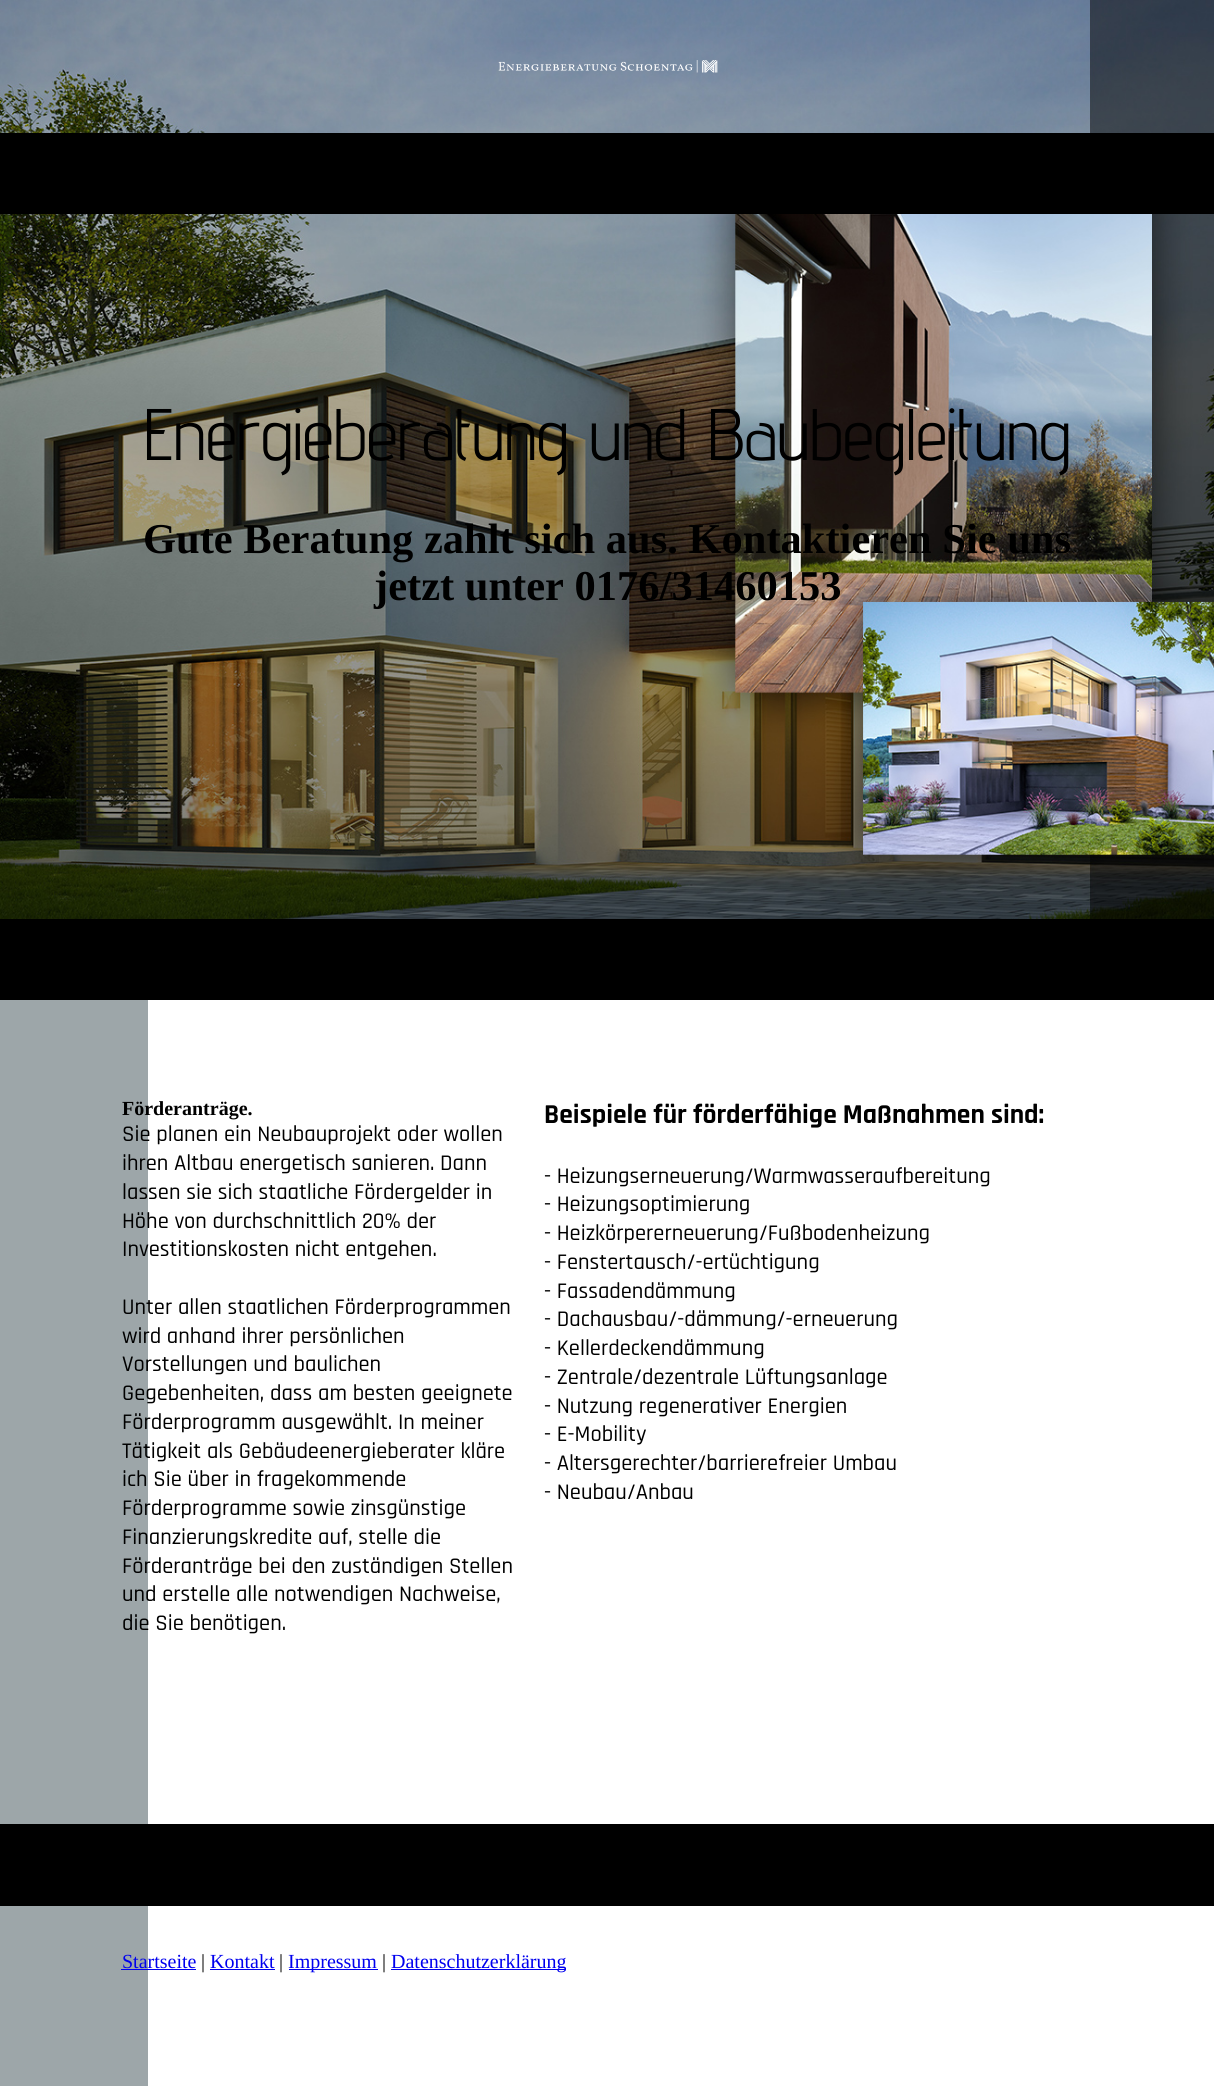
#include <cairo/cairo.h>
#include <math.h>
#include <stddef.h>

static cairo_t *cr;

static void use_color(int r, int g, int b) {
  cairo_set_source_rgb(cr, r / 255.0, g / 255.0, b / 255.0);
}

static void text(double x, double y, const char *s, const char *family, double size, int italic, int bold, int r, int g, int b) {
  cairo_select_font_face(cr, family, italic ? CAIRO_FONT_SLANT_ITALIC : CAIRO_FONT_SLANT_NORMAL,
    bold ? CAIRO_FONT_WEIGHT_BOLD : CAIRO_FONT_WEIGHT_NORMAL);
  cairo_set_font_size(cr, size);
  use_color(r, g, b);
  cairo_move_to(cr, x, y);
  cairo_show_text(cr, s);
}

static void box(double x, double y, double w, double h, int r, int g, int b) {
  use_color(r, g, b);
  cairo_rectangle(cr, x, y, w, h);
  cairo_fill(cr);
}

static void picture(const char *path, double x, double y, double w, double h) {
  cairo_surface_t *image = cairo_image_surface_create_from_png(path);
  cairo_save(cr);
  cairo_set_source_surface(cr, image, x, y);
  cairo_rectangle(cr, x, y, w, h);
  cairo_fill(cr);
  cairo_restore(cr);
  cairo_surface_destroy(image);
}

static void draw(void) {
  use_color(255, 255, 255);
  cairo_paint(cr);
  box(0, 1000, 148, 1086, 157, 166, 169);
  picture("img_02.png", 0, 0, 1214, 919);
  picture("img_01.png", 498, 60, 220, 13);
  box(0, 133, 1214, 81, 0, 0, 0);
  box(0, 919, 1214, 81, 0, 0, 0);
  box(0, 1824, 1214, 82, 0, 0, 0);
  box(121, 1969, 75, 1, 0, 0, 238);
  box(210, 1969, 65, 1, 0, 0, 238);
  box(289, 1969, 89, 1, 0, 0, 238);
  box(391, 1969, 175, 1, 0, 0, 238);
  text(144, 460, "Energieberatung und Baubegleitung", "Advent Pro", 72.9, 0, 0, 0, 0, 0);
  text(143, 553, "Gute Beratung zahlt sich aus. Kontaktieren Sie uns", "Liberation Serif", 42.5, 0, 1, 0, 0, 0);
  text(374, 600, "jetzt unter 0176/31460153", "Liberation Serif", 42.5, 0, 1, 0, 0, 0);
  text(122, 1115, "Förderanträge.", "Liberation Serif", 20, 0, 1, 0, 0, 0);
  text(122, 1141, "Sie planen ein Neubauprojekt oder wollen", "Rajdhani Medium", 22.5, 0, 0, 0, 0, 0);
  text(122, 1170, "ihren Altbau energetisch sanieren. Dann", "Rajdhani Medium", 22.5, 0, 0, 0, 0, 0);
  text(122, 1199, "lassen sie sich staatliche Fördergelder in", "Rajdhani Medium", 22.5, 0, 0, 0, 0, 0);
  text(122, 1228, "Höhe von durchschnittlich 20% der", "Rajdhani Medium", 22.5, 0, 0, 0, 0, 0);
  text(122, 1256, "Investitionskosten nicht entgehen.", "Rajdhani Medium", 22.5, 0, 0, 0, 0, 0);
  text(122, 1314, "Unter allen staatlichen Förderprogrammen", "Rajdhani Medium", 22.5, 0, 0, 0, 0, 0);
  text(122, 1343, "wird anhand ihrer persönlichen", "Rajdhani Medium", 22.5, 0, 0, 0, 0, 0);
  text(122, 1371, "Vorstellungen und baulichen", "Rajdhani Medium", 22.5, 0, 0, 0, 0, 0);
  text(122, 1400, "Gegebenheiten, dass am besten geeignete", "Rajdhani Medium", 22.5, 0, 0, 0, 0, 0);
  text(122, 1429, "Förderprogramm ausgewählt. In meiner", "Rajdhani Medium", 22.5, 0, 0, 0, 0, 0);
  text(122, 1458, "Tätigkeit als Gebäudeenergieberater kläre", "Rajdhani Medium", 22.5, 0, 0, 0, 0, 0);
  text(122, 1486, "ich Sie über in fragekommende", "Rajdhani Medium", 22.5, 0, 0, 0, 0, 0);
  text(122, 1515, "Förderprogramme sowie zinsgünstige", "Rajdhani Medium", 22.5, 0, 0, 0, 0, 0);
  text(122, 1544, "Finanzierungskredite auf, stelle die", "Rajdhani Medium", 22.5, 0, 0, 0, 0, 0);
  text(122, 1573, "Förderanträge bei den zuständigen Stellen", "Rajdhani Medium", 22.5, 0, 0, 0, 0, 0);
  text(122, 1601, "und erstelle alle notwendigen Nachweise,", "Rajdhani Medium", 22.5, 0, 0, 0, 0, 0);
  text(122, 1630, "die Sie benötigen.", "Rajdhani Medium", 22.5, 0, 0, 0, 0, 0);
  text(544, 1123, "Beispiele für förderfähige Maßnahmen sind:", "Rajdhani", 27.5, 0, 1, 0, 0, 0);
  text(544, 1183, "- Heizungserneuerung/Warmwasseraufbereitung", "Rajdhani Medium", 22.5, 0, 0, 0, 0, 0);
  text(544, 1211, "- Heizungsoptimierung", "Rajdhani Medium", 22.5, 0, 0, 0, 0, 0);
  text(544, 1240, "- Heizkörpererneuerung/Fußbodenheizung", "Rajdhani Medium", 22.5, 0, 0, 0, 0, 0);
  text(544, 1269, "- Fenstertausch/-ertüchtigung", "Rajdhani Medium", 22.5, 0, 0, 0, 0, 0);
  text(544, 1298, "- Fassadendämmung", "Rajdhani Medium", 22.5, 0, 0, 0, 0, 0);
  text(544, 1326, "- Dachausbau/-dämmung/-erneuerung", "Rajdhani Medium", 22.5, 0, 0, 0, 0, 0);
  text(544, 1355, "- Kellerdeckendämmung", "Rajdhani Medium", 22.5, 0, 0, 0, 0, 0);
  text(544, 1384, "- Zentrale/dezentrale Lüftungsanlage", "Rajdhani Medium", 22.5, 0, 0, 0, 0, 0);
  text(544, 1413, "- Nutzung regenerativer Energien", "Rajdhani Medium", 22.5, 0, 0, 0, 0, 0);
  text(544, 1441, "- E-Mobility", "Rajdhani Medium", 22.5, 0, 0, 0, 0, 0);
  text(544, 1470, "- Altersgerechter/barrierefreier Umbau", "Rajdhani Medium", 22.5, 0, 0, 0, 0, 0);
  text(544, 1499, "- Neubau/Anbau", "Rajdhani Medium", 22.5, 0, 0, 0, 0, 0);
  text(122, 1968, "Startseite", "Liberation Serif", 20, 0, 0, 0, 0, 238);
  text(201, 1968, "|", "Liberation Serif", 20, 0, 0, 0, 0, 0);
  text(210, 1968, "Kontakt", "Liberation Serif", 20, 0, 0, 0, 0, 238);
  text(279, 1968, "|", "Liberation Serif", 20, 0, 0, 0, 0, 0);
  text(288, 1968, "Impressum", "Liberation Serif", 20, 0, 0, 0, 0, 238);
  text(382, 1968, "|", "Liberation Serif", 20, 0, 0, 0, 0, 0);
  text(391, 1968, "Datenschutzerklärung", "Liberation Serif", 20, 0, 0, 0, 0, 238);
}

int main(void) {
  cairo_surface_t *surface = cairo_image_surface_create(CAIRO_FORMAT_RGB24, 1214, 2086);
  cr = cairo_create(surface);
  cairo_font_options_t *options = cairo_font_options_create();
  cairo_font_options_set_hint_metrics(options, CAIRO_HINT_METRICS_OFF);
  cairo_font_options_set_hint_style(options, CAIRO_HINT_STYLE_NONE);
  cairo_set_font_options(cr, options);
  cairo_set_miter_limit(cr, 4);
  draw();
  cairo_surface_write_to_png(surface, "out.png");
  cairo_font_options_destroy(options);
  cairo_destroy(cr);
  cairo_surface_destroy(surface);
  return 0;
}
